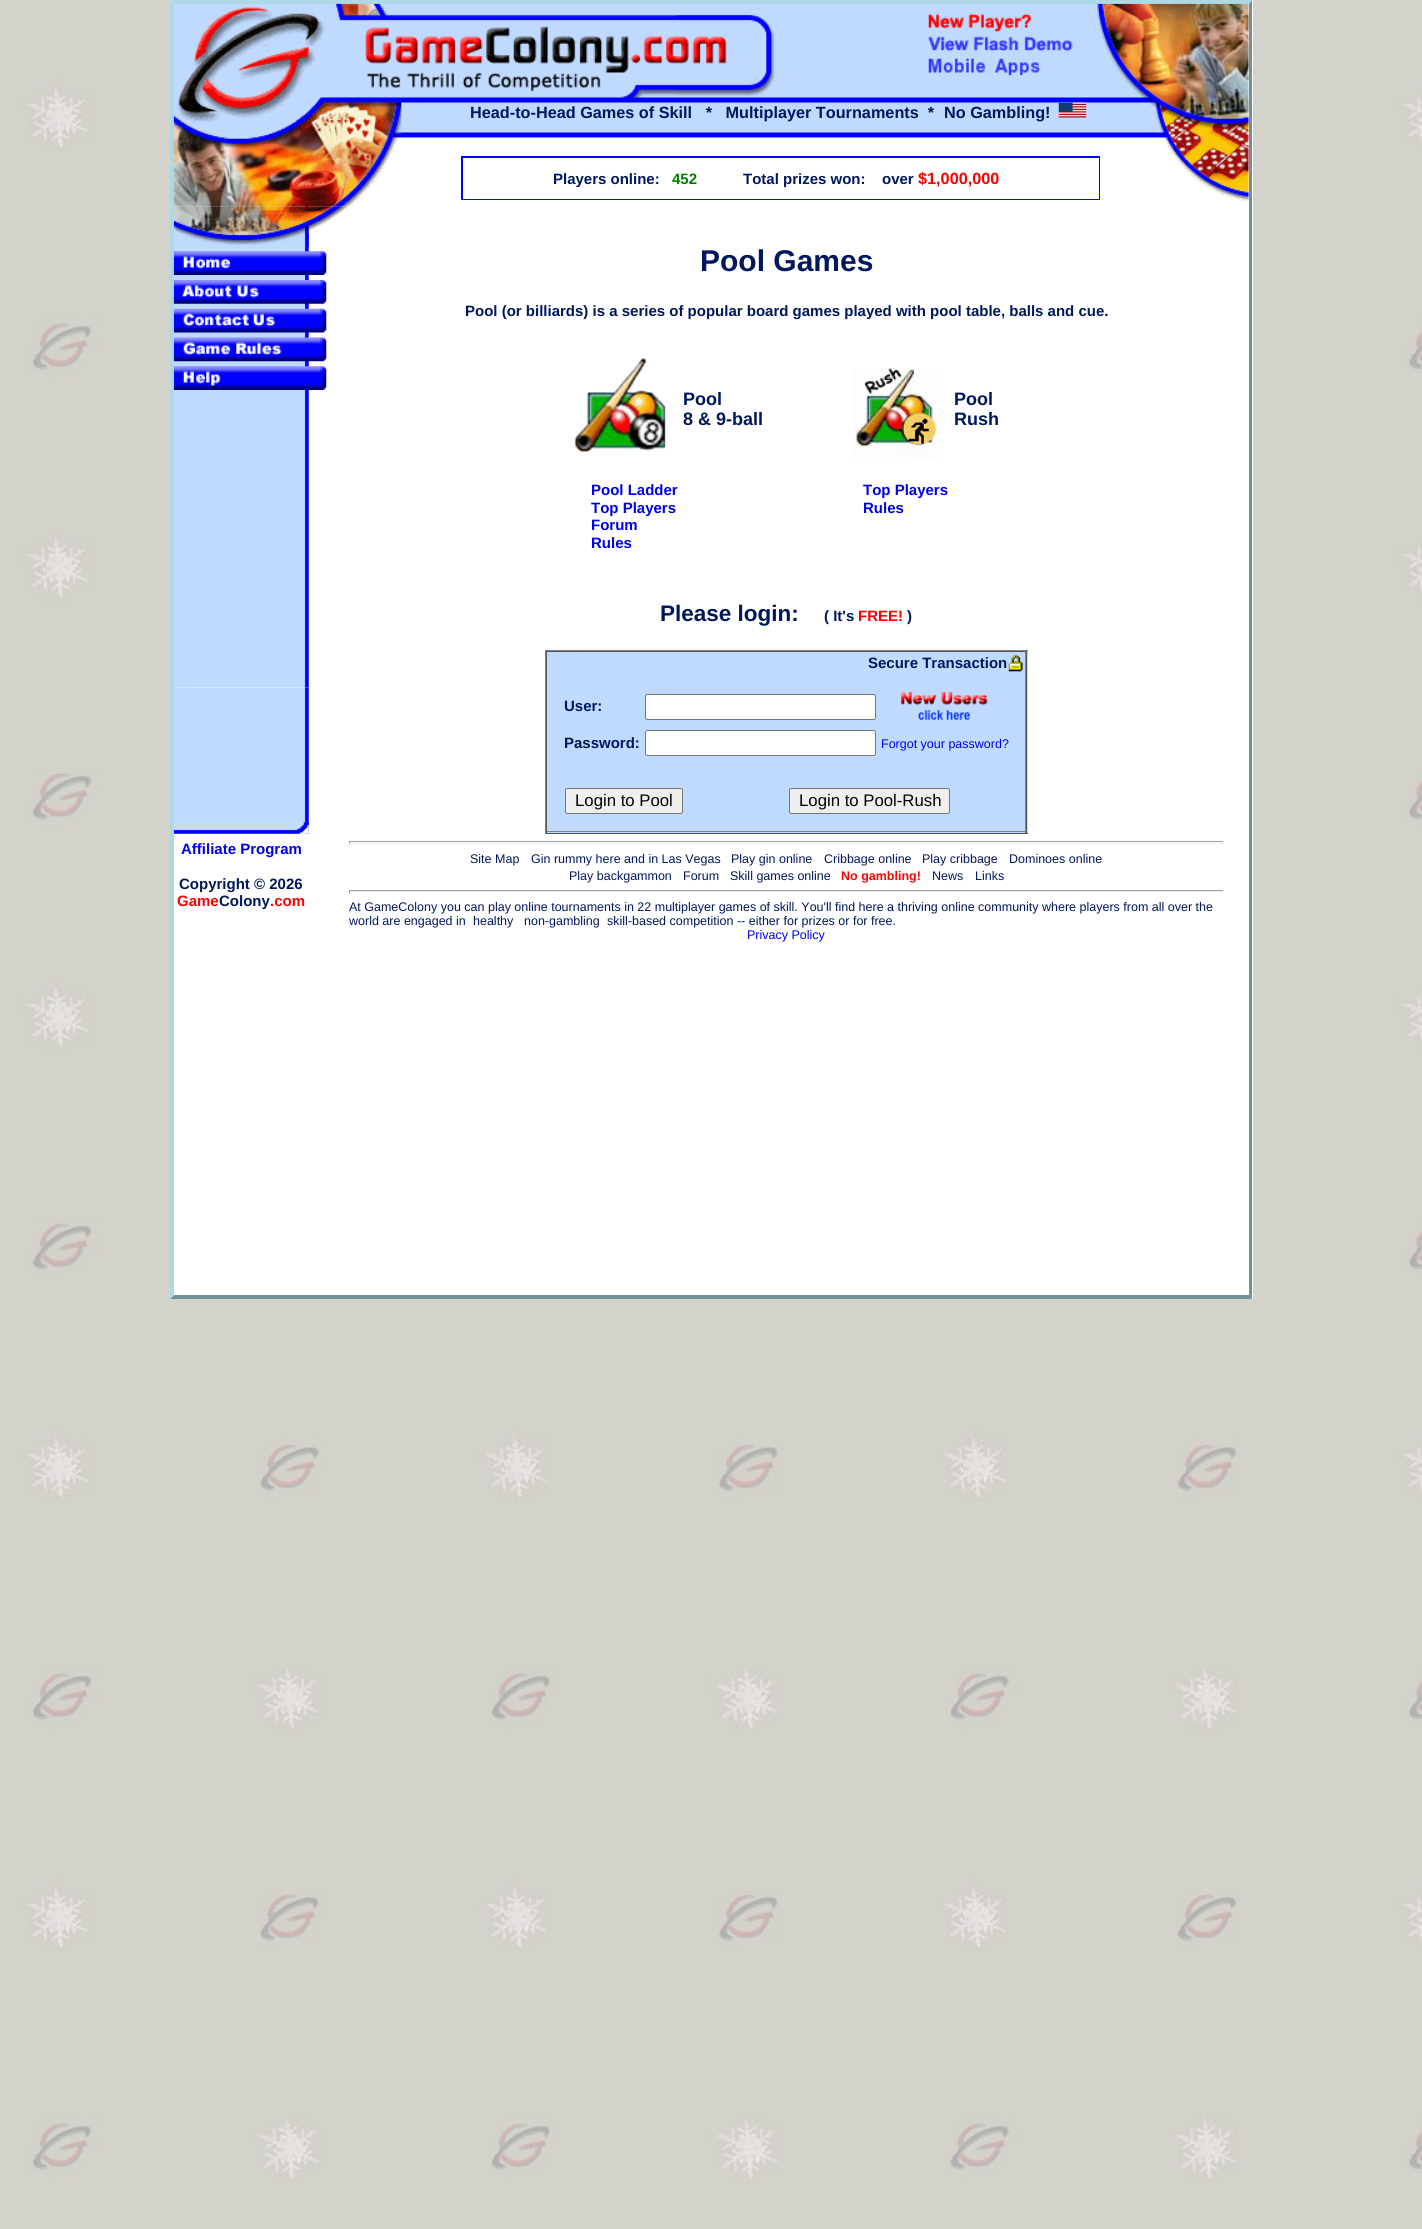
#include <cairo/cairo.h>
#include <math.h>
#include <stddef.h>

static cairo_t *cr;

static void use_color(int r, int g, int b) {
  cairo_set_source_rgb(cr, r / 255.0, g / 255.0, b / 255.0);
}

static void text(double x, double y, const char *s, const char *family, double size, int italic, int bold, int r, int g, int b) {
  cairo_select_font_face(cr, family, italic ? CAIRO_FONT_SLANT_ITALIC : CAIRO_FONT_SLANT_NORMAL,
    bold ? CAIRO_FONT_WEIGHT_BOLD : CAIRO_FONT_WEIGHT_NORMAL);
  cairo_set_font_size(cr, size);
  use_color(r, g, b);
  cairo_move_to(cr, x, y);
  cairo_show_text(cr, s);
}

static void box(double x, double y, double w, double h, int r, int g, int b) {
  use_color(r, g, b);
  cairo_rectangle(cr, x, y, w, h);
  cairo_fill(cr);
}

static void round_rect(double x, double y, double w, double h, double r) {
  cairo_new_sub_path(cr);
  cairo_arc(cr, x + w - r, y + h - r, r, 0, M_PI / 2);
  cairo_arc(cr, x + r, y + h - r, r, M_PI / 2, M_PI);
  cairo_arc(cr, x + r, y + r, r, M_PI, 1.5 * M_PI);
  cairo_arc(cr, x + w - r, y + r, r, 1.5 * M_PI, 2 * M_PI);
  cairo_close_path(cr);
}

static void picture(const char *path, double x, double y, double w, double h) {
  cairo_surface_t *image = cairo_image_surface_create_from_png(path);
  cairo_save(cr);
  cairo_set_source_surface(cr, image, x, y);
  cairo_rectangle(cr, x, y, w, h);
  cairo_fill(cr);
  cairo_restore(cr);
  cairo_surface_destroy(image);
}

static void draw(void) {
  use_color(255, 255, 255);
  cairo_paint(cr);
  picture("img_01.png", 0, 0, 1422, 2229);
  box(170, 0, 1083, 1299, 255, 255, 255);
  use_color(173, 216, 230);
  cairo_new_path(cr);
  cairo_move_to(cr, 170, 0);
  cairo_line_to(cr, 1252, 0);
  cairo_line_to(cr, 1249, 4);
  cairo_line_to(cr, 174, 4);
  cairo_close_path(cr);
  cairo_fill(cr);
  use_color(115, 144, 153);
  cairo_new_path(cr);
  cairo_move_to(cr, 1252, 0);
  cairo_line_to(cr, 1252, 1299);
  cairo_line_to(cr, 1249, 1295);
  cairo_line_to(cr, 1249, 4);
  cairo_close_path(cr);
  cairo_fill(cr);
  cairo_new_path(cr);
  cairo_move_to(cr, 1252, 1299);
  cairo_line_to(cr, 170, 1299);
  cairo_line_to(cr, 174, 1295);
  cairo_line_to(cr, 1249, 1295);
  cairo_close_path(cr);
  cairo_fill(cr);
  use_color(173, 216, 230);
  cairo_new_path(cr);
  cairo_move_to(cr, 170, 1299);
  cairo_line_to(cr, 170, 0);
  cairo_line_to(cr, 174, 4);
  cairo_line_to(cr, 174, 1295);
  cairo_close_path(cr);
  cairo_fill(cr);
  picture("img_02.png", 173, 3, 1076, 204);
  picture("img_03.png", 928, 13, 104, 19);
  picture("img_04.png", 928, 36, 145, 16);
  picture("img_05.png", 928, 58, 113, 18);
  picture("img_06.png", 173, 105, 154, 17);
  picture("img_07.png", 1058, 102, 29, 16);
  box(461, 156, 639, 44, 0, 0, 255);
  box(463, 158, 636, 41, 255, 255, 255);
  picture("img_10.png", 174, 206, 135, 482);
  picture("img_08.png", 174, 687, 135, 147);
  picture("img_09.png", 173, 822, 136, 12);
  picture("img_11.png", 173, 206, 175, 41);
  picture("img_12.png", 173, 251, 154, 24);
  picture("img_13.png", 173, 280, 154, 24);
  picture("img_14.png", 173, 308, 154, 25);
  picture("img_15.png", 173, 337, 154, 25);
  picture("img_16.png", 173, 366, 154, 24);
  picture("img_17.png", 574, 357, 93, 96);
  picture("img_18.png", 852, 368, 85, 94);
  box(547, 651, 481, 182, 192, 217, 255);
  box(545, 650, 483, 1, 128, 128, 128);
  box(1026, 650, 1, 184, 85, 85, 85);
  box(545, 833, 483, 1, 85, 85, 85);
  box(545, 650, 1, 184, 128, 128, 128);
  box(546, 651, 480, 1, 85, 85, 85);
  box(1025, 651, 1, 182, 128, 128, 128);
  box(546, 831, 480, 1, 128, 128, 128);
  box(546, 651, 1, 182, 85, 85, 85);
  picture("img_19.png", 1008, 654, 15, 18);
  use_color(255, 255, 255);
  round_rect(645.5, 694.5, 230, 25, 2);
  cairo_fill_preserve(cr);
  use_color(118, 118, 118);
  cairo_set_line_width(cr, 1);
  cairo_stroke(cr);
  picture("img_20.png", 901, 691, 87, 29);
  use_color(255, 255, 255);
  round_rect(645.5, 730.5, 230, 25, 2);
  cairo_fill_preserve(cr);
  use_color(118, 118, 118);
  cairo_stroke(cr);
  use_color(239, 239, 239);
  round_rect(565.5, 788.5, 117, 25, 2);
  cairo_fill_preserve(cr);
  use_color(118, 118, 118);
  cairo_stroke(cr);
  use_color(239, 239, 239);
  round_rect(789.5, 788.5, 160, 25, 2);
  cairo_fill_preserve(cr);
  use_color(118, 118, 118);
  cairo_stroke(cr);
  box(349, 841, 875, 1, 159, 159, 159);
  box(1223, 841, 1, 3, 238, 238, 238);
  box(349, 843, 875, 1, 238, 238, 238);
  box(349, 841, 1, 3, 159, 159, 159);
  box(349, 890, 875, 1, 159, 159, 159);
  box(1223, 890, 1, 3, 238, 238, 238);
  box(349, 891, 875, 1, 238, 238, 238);
  box(349, 890, 1, 3, 159, 159, 159);
  text(470, 118, "Head-to-Head Games of Skill   *   Multiplayer Tournaments  *", "Liberation Sans", 16.25, 0, 1, 0, 23, 93);
  text(944, 118, "No Gambling!", "Liberation Sans", 16.25, 0, 1, 0, 23, 93);
  text(553, 184, "Players online:", "Liberation Sans", 15, 0, 1, 0, 23, 93);
  text(672, 184, "452", "Liberation Sans", 15, 0, 1, 0, 128, 0);
  text(743, 184, "Total prizes won:", "Liberation Sans", 15, 0, 1, 0, 23, 93);
  text(882, 184, "over", "Liberation Sans", 15, 0, 1, 0, 23, 93);
  text(918, 184, "$1,000,000", "Liberation Sans", 16.25, 0, 1, 255, 0, 0);
  text(700, 271, "Pool Games", "Liberation Sans", 30, 0, 1, 0, 23, 93);
  text(465, 316, "Pool (or billiards) is a series of popular board games played with pool table, balls and cue.", "Liberation Sans", 15, 0, 1, 0, 23, 93);
  text(683, 405, "Pool", "Liberation Sans", 18, 0, 1, 0, 23, 93);
  text(683, 425, "8 & 9-ball", "Liberation Sans", 18, 0, 1, 0, 23, 93);
  text(954, 405, "Pool", "Liberation Sans", 18, 0, 1, 0, 23, 93);
  text(954, 425, "Rush", "Liberation Sans", 18, 0, 1, 0, 23, 93);
  text(591, 495, "Pool Ladder", "Liberation Sans", 15, 0, 1, 0, 0, 238);
  text(591, 513, "Top Players", "Liberation Sans", 15, 0, 1, 0, 0, 238);
  text(591, 530, "Forum", "Liberation Sans", 15, 0, 1, 0, 0, 238);
  text(591, 548, "Rules", "Liberation Sans", 15, 0, 1, 0, 0, 238);
  text(863, 495, "Top Players", "Liberation Sans", 15, 0, 1, 0, 0, 238);
  text(863, 513, "Rules", "Liberation Sans", 15, 0, 1, 0, 0, 238);
  text(660, 621, "Please login:", "Liberation Sans", 22.5, 0, 1, 0, 23, 93);
  text(824, 621, "( It's", "Liberation Sans", 15, 0, 1, 0, 23, 93);
  text(858, 621, "FREE!", "Liberation Sans", 15, 0, 1, 255, 0, 0);
  text(907, 621, ")", "Liberation Sans", 15, 0, 1, 0, 23, 93);
  text(868, 668, "Secure Transaction", "Liberation Sans", 15, 0, 1, 0, 23, 93);
  text(564, 711, "User:", "Liberation Sans", 15, 0, 1, 0, 23, 93);
  text(564, 748, "Password:", "Liberation Sans", 15, 0, 1, 0, 23, 93);
  text(881, 748, "Forgot your password?", "Liberation Sans", 12.5, 0, 0, 0, 0, 238);
  text(575, 806, "Login to Pool", "Liberation Sans", 16.75, 0, 0, 0, 0, 0);
  text(799, 806, "Login to Pool-Rush", "Liberation Sans", 16.75, 0, 0, 0, 0, 0);
  text(181, 854, "Affiliate Program", "Liberation Sans", 15, 0, 1, 0, 0, 238);
  text(179, 889, "Copyright © 2026", "Liberation Sans", 15, 0, 1, 0, 23, 93);
  text(177, 906, "Game", "Liberation Sans", 15, 0, 1, 255, 0, 0);
  text(219, 906, "Colony", "Liberation Sans", 15, 0, 1, 0, 23, 93);
  text(270, 906, ".com", "Liberation Sans", 15, 0, 1, 255, 0, 0);
  text(470, 863, "Site Map", "Liberation Sans", 12.5, 0, 0, 0, 23, 93);
  text(531, 863, "Gin rummy here and in Las Vegas", "Liberation Sans", 12.5, 0, 0, 0, 23, 93);
  text(731, 863, "Play gin online", "Liberation Sans", 12.5, 0, 0, 0, 23, 93);
  text(824, 863, "Cribbage online", "Liberation Sans", 12.5, 0, 0, 0, 23, 93);
  text(922, 863, "Play cribbage", "Liberation Sans", 12.5, 0, 0, 0, 23, 93);
  text(1009, 863, "Dominoes online", "Liberation Sans", 12.5, 0, 0, 0, 23, 93);
  text(569, 880, "Play backgammon", "Liberation Sans", 12.5, 0, 0, 0, 23, 93);
  text(683, 880, "Forum", "Liberation Sans", 12.5, 0, 0, 0, 23, 93);
  text(730, 880, "Skill games online", "Liberation Sans", 12.5, 0, 0, 0, 23, 93);
  text(841, 880, "No gambling!", "Liberation Sans", 12.5, 0, 1, 255, 0, 0);
  text(932, 880, "News", "Liberation Sans", 12.5, 0, 0, 0, 23, 93);
  text(975, 880, "Links", "Liberation Sans", 12.5, 0, 0, 0, 23, 93);
  text(349, 911, "At GameColony you can play online tournaments in 22 multiplayer games of skill. You'll find here a thriving online community where players from all over the", "Liberation Sans", 12.5, 0, 0, 0, 23, 93);
  text(349, 925, "world are engaged in", "Liberation Sans", 12.5, 0, 0, 0, 23, 93);
  text(473, 925, "healthy", "Liberation Sans", 12.5, 0, 0, 0, 23, 93);
  text(524, 925, "non-gambling", "Liberation Sans", 12.5, 0, 0, 0, 23, 93);
  text(607, 925, "skill-based competition -- either for prizes or for free.", "Liberation Sans", 12.5, 0, 0, 0, 23, 93);
  text(747, 939, "Privacy Policy", "Liberation Sans", 12.5, 0, 0, 0, 0, 238);
}

int main(void) {
  cairo_surface_t *surface = cairo_image_surface_create(CAIRO_FORMAT_RGB24, 1422, 2229);
  cr = cairo_create(surface);
  cairo_font_options_t *options = cairo_font_options_create();
  cairo_font_options_set_hint_metrics(options, CAIRO_HINT_METRICS_OFF);
  cairo_font_options_set_hint_style(options, CAIRO_HINT_STYLE_NONE);
  cairo_set_font_options(cr, options);
  cairo_set_miter_limit(cr, 4);
  draw();
  cairo_surface_write_to_png(surface, "out.png");
  cairo_font_options_destroy(options);
  cairo_destroy(cr);
  cairo_surface_destroy(surface);
  return 0;
}
